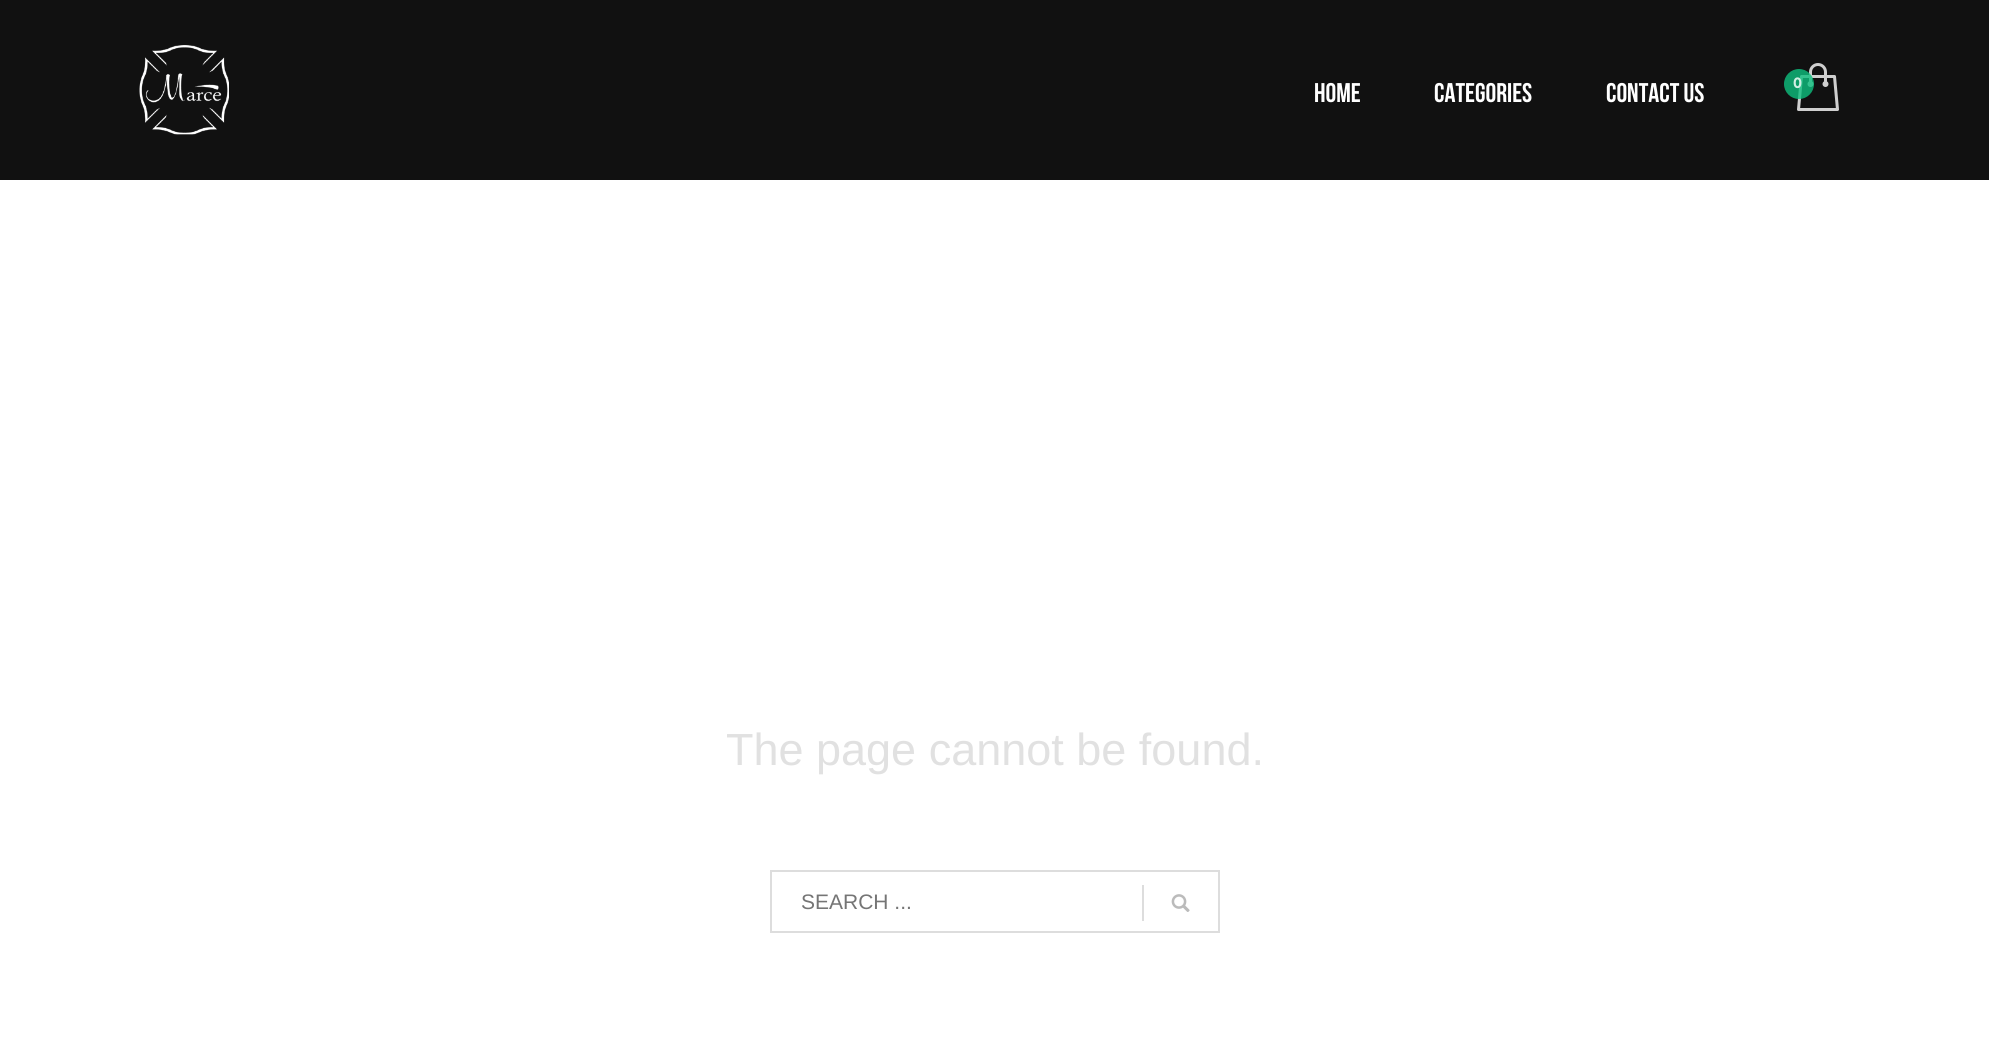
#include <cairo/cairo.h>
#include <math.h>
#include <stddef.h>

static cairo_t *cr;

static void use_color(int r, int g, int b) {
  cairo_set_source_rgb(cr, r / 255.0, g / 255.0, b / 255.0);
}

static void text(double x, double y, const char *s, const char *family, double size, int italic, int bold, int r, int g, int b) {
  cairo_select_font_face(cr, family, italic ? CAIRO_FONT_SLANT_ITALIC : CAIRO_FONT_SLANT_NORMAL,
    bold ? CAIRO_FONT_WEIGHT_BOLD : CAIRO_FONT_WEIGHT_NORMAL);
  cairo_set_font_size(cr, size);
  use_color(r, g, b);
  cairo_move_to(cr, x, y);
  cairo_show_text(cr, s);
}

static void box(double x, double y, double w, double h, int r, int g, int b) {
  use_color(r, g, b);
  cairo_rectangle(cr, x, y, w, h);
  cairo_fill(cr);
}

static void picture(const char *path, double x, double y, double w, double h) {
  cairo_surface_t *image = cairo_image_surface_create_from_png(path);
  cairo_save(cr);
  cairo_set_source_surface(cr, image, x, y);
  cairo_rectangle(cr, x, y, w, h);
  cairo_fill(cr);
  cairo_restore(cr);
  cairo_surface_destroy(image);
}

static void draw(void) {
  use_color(255, 255, 255);
  cairo_paint(cr);
  box(0, 0, 1989, 180, 17, 17, 17);
  picture("img_01.png", 139, 45, 90, 90);
  picture("img_02.png", 1797, 63, 42, 48);
  cairo_set_source_rgba(cr, 0.055, 0.749, 0.498, 0.8);
  cairo_arc(cr, 1799, 84, 15, 0, 2 * M_PI);
  cairo_fill(cr);
  cairo_rectangle(cr, 771, 871, 448, 61);
  use_color(221, 221, 221);
  cairo_stroke(cr);
  box(1142, 885, 2, 36, 221, 221, 221);
  picture("img_03.png", 1171, 894, 19, 18);
  text(1314, 102, "HOME", "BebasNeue", 27, 0, 0, 255, 255, 255);
  text(1434, 102, "CATEGORIES", "BebasNeue", 27, 0, 0, 255, 255, 255);
  text(1606, 102, "CONTACT US", "BebasNeue", 27, 0, 0, 255, 255, 255);
  text(1793, 88, "0", "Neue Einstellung", 14, 0, 1, 209, 238, 227);
  text(726, 765, "The page cannot be found.", "Liberation Sans", 45, 0, 0, 225, 225, 225);
  text(801, 909, "SEARCH ...", "Liberation Sans", 21, 0, 0, 117, 117, 117);
}

int main(void) {
  cairo_surface_t *surface = cairo_image_surface_create(CAIRO_FORMAT_RGB24, 1989, 1052);
  cr = cairo_create(surface);
  cairo_font_options_t *options = cairo_font_options_create();
  cairo_font_options_set_hint_metrics(options, CAIRO_HINT_METRICS_OFF);
  cairo_font_options_set_hint_style(options, CAIRO_HINT_STYLE_NONE);
  cairo_set_font_options(cr, options);
  cairo_set_miter_limit(cr, 4);
  draw();
  cairo_surface_write_to_png(surface, "out.png");
  cairo_font_options_destroy(options);
  cairo_destroy(cr);
  cairo_surface_destroy(surface);
  return 0;
}
